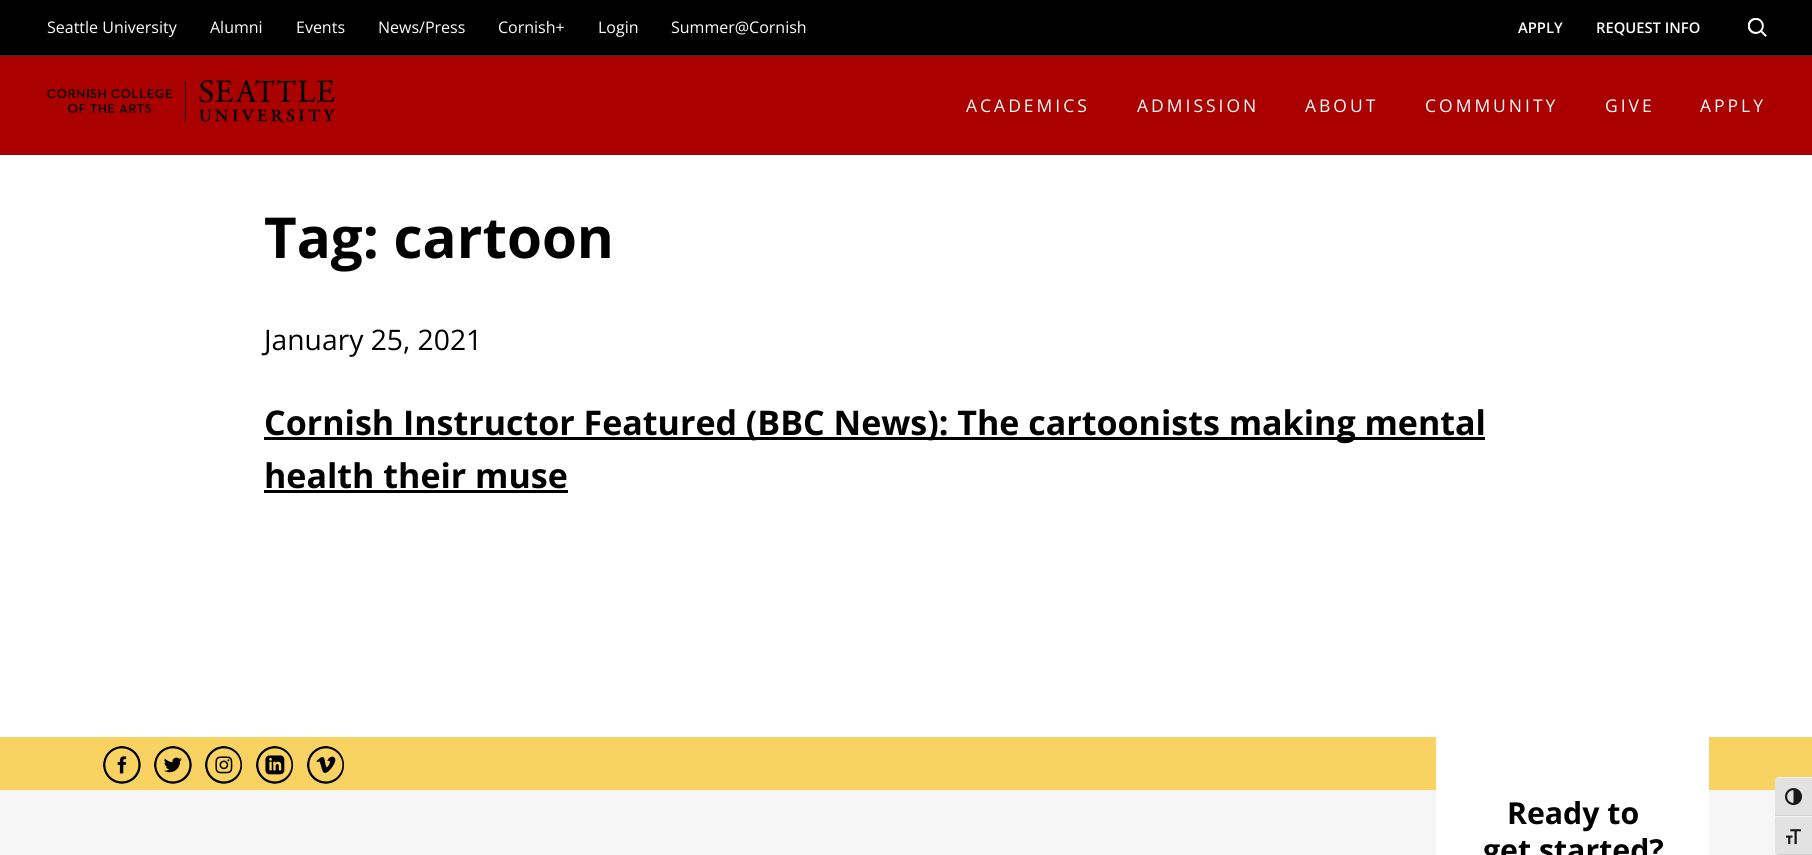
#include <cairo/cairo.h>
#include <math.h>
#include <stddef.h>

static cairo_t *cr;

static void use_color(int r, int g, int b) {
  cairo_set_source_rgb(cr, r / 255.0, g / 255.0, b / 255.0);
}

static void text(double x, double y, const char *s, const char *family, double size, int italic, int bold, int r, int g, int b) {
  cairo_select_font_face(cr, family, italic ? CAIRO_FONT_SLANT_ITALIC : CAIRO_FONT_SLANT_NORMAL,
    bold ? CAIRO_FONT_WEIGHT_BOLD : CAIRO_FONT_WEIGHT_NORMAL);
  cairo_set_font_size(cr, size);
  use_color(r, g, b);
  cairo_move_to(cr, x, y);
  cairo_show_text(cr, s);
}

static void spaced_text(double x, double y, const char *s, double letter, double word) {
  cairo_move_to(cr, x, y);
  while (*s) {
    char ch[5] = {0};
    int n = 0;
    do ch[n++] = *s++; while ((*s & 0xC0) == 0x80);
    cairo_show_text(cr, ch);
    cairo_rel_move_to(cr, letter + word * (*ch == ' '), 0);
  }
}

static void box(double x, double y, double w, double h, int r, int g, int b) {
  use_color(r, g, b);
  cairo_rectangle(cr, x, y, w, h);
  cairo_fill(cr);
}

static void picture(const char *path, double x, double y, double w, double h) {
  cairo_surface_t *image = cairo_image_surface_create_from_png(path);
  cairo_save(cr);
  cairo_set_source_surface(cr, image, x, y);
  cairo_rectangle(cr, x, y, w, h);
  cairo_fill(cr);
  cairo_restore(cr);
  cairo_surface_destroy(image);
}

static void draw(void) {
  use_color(255, 255, 255);
  cairo_paint(cr);
  box(0, 56, 1812, 99, 170, 0, 0);
  box(0, 0, 1812, 55, 0, 0, 0);
  box(0, 55, 1812, 1, 51, 51, 51);
  picture("img_01.png", 1748, 18, 19, 19);
  picture("img_02.png", 47, 80, 288, 43);
  box(264, 437, 1221, 3, 0, 0, 0);
  box(264, 490, 304, 3, 0, 0, 0);
  box(0, 790, 1779, 65, 246, 246, 246);
  box(0, 737, 1812, 53, 248, 211, 97);
  picture("img_03.png", 103, 746, 38, 38);
  picture("img_04.png", 154, 746, 38, 38);
  picture("img_05.png", 205, 746, 37, 38);
  picture("img_06.png", 256, 746, 37, 38);
  picture("img_07.png", 307, 746, 37, 38);
  box(1436, 737, 273, 118, 255, 255, 255);
  use_color(226, 226, 226);
  cairo_new_path(cr);
  cairo_move_to(cr, 1779, 777);
  cairo_line_to(cr, 1812, 777);
  cairo_line_to(cr, 1812, 816);
  cairo_line_to(cr, 1775, 816);
  cairo_line_to(cr, 1775, 781);
  cairo_curve_to(cr, 1775, 779, 1777, 777, 1779, 777);
  cairo_close_path(cr);
  cairo_fill(cr);
  use_color(245, 245, 245);
  cairo_new_path(cr);
  cairo_move_to(cr, 1779, 778);
  cairo_line_to(cr, 1812, 778);
  cairo_line_to(cr, 1812, 777);
  cairo_line_to(cr, 1779, 777);
  cairo_curve_to(cr, 1777, 777, 1775, 779, 1775, 781);
  cairo_curve_to(cr, 1775, 779.5, 1777, 778, 1779, 778);
  cairo_close_path(cr);
  cairo_fill(cr);
  box(1775, 815, 37, 1, 210, 210, 210);
  picture("img_08.png", 1785, 788, 17, 18);
  use_color(226, 226, 226);
  cairo_new_path(cr);
  cairo_move_to(cr, 1775, 816);
  cairo_line_to(cr, 1812, 816);
  cairo_line_to(cr, 1812, 855);
  cairo_line_to(cr, 1779, 855);
  cairo_curve_to(cr, 1777, 855, 1775, 853, 1775, 851);
  cairo_close_path(cr);
  cairo_fill(cr);
  box(1775, 816, 37, 1, 245, 245, 245);
  use_color(210, 210, 210);
  cairo_new_path(cr);
  cairo_move_to(cr, 1812, 855);
  cairo_line_to(cr, 1812, 854);
  cairo_line_to(cr, 1779, 854);
  cairo_curve_to(cr, 1777, 854, 1775, 852.5, 1775, 851);
  cairo_curve_to(cr, 1775, 853, 1777, 855, 1779, 855);
  cairo_close_path(cr);
  cairo_fill(cr);
  picture("img_09.png", 1786, 829, 15, 16);
  text(47, 33, "Seattle University", "Open Sans", 16, 0, 0, 255, 255, 255);
  text(210, 33, "Alumni", "Open Sans", 16, 0, 0, 255, 255, 255);
  text(296, 33, "Events", "Open Sans", 16, 0, 0, 255, 255, 255);
  text(378, 33, "News/Press", "Open Sans", 16, 0, 0, 255, 255, 255);
  text(498, 33, "Cornish+", "Open Sans", 16, 0, 0, 255, 255, 255);
  text(598, 33, "Login", "Open Sans", 16, 0, 0, 255, 255, 255);
  text(671, 33, "Summer@Cornish", "Open Sans", 16, 0, 0, 255, 255, 255);
  text(1518, 33, "APPLY", "Open Sans SemiBold", 14.75, 0, 0, 255, 255, 255);
  text(1596, 33, "REQUEST INFO", "Open Sans SemiBold", 14.75, 0, 0, 255, 255, 255);
  cairo_select_font_face(cr, "Open Sans", CAIRO_FONT_SLANT_NORMAL, CAIRO_FONT_WEIGHT_NORMAL);
  cairo_set_font_size(cr, 17.5);
  spaced_text(966, 112, "ACADEMICS", 3, 0);
  spaced_text(1137, 112, "ADMISSION", 3, 0);
  spaced_text(1305, 112, "ABOUT", 3, 0);
  spaced_text(1425, 112, "COMMUNITY", 3, 0);
  spaced_text(1605, 112, "GIVE", 3, 0);
  spaced_text(1700, 112, "APPLY", 3, 0);
  text(264, 258, "Tag: cartoon", "Open Sans", 56.5, 0, 1, 0, 0, 0);
  text(264, 350, "January 25, 2021", "Open Sans", 28.25, 0, 0, 0, 0, 0);
  text(264, 435, "Cornish Instructor Featured (BBC News): The cartoonists making mental", "Open Sans", 34, 0, 1, 0, 0, 0);
  text(264, 488, "health their muse", "Open Sans", 34, 0, 1, 0, 0, 0);
  text(1507, 824, "Ready to", "Open Sans", 30.25, 0, 1, 0, 0, 0);
  text(1483, 861, "get started?", "Open Sans", 30.25, 0, 1, 0, 0, 0);
}

int main(void) {
  cairo_surface_t *surface = cairo_image_surface_create(CAIRO_FORMAT_RGB24, 1812, 855);
  cr = cairo_create(surface);
  cairo_font_options_t *options = cairo_font_options_create();
  cairo_font_options_set_hint_metrics(options, CAIRO_HINT_METRICS_OFF);
  cairo_font_options_set_hint_style(options, CAIRO_HINT_STYLE_NONE);
  cairo_set_font_options(cr, options);
  cairo_set_miter_limit(cr, 4);
  draw();
  cairo_surface_write_to_png(surface, "out.png");
  cairo_font_options_destroy(options);
  cairo_destroy(cr);
  cairo_surface_destroy(surface);
  return 0;
}
